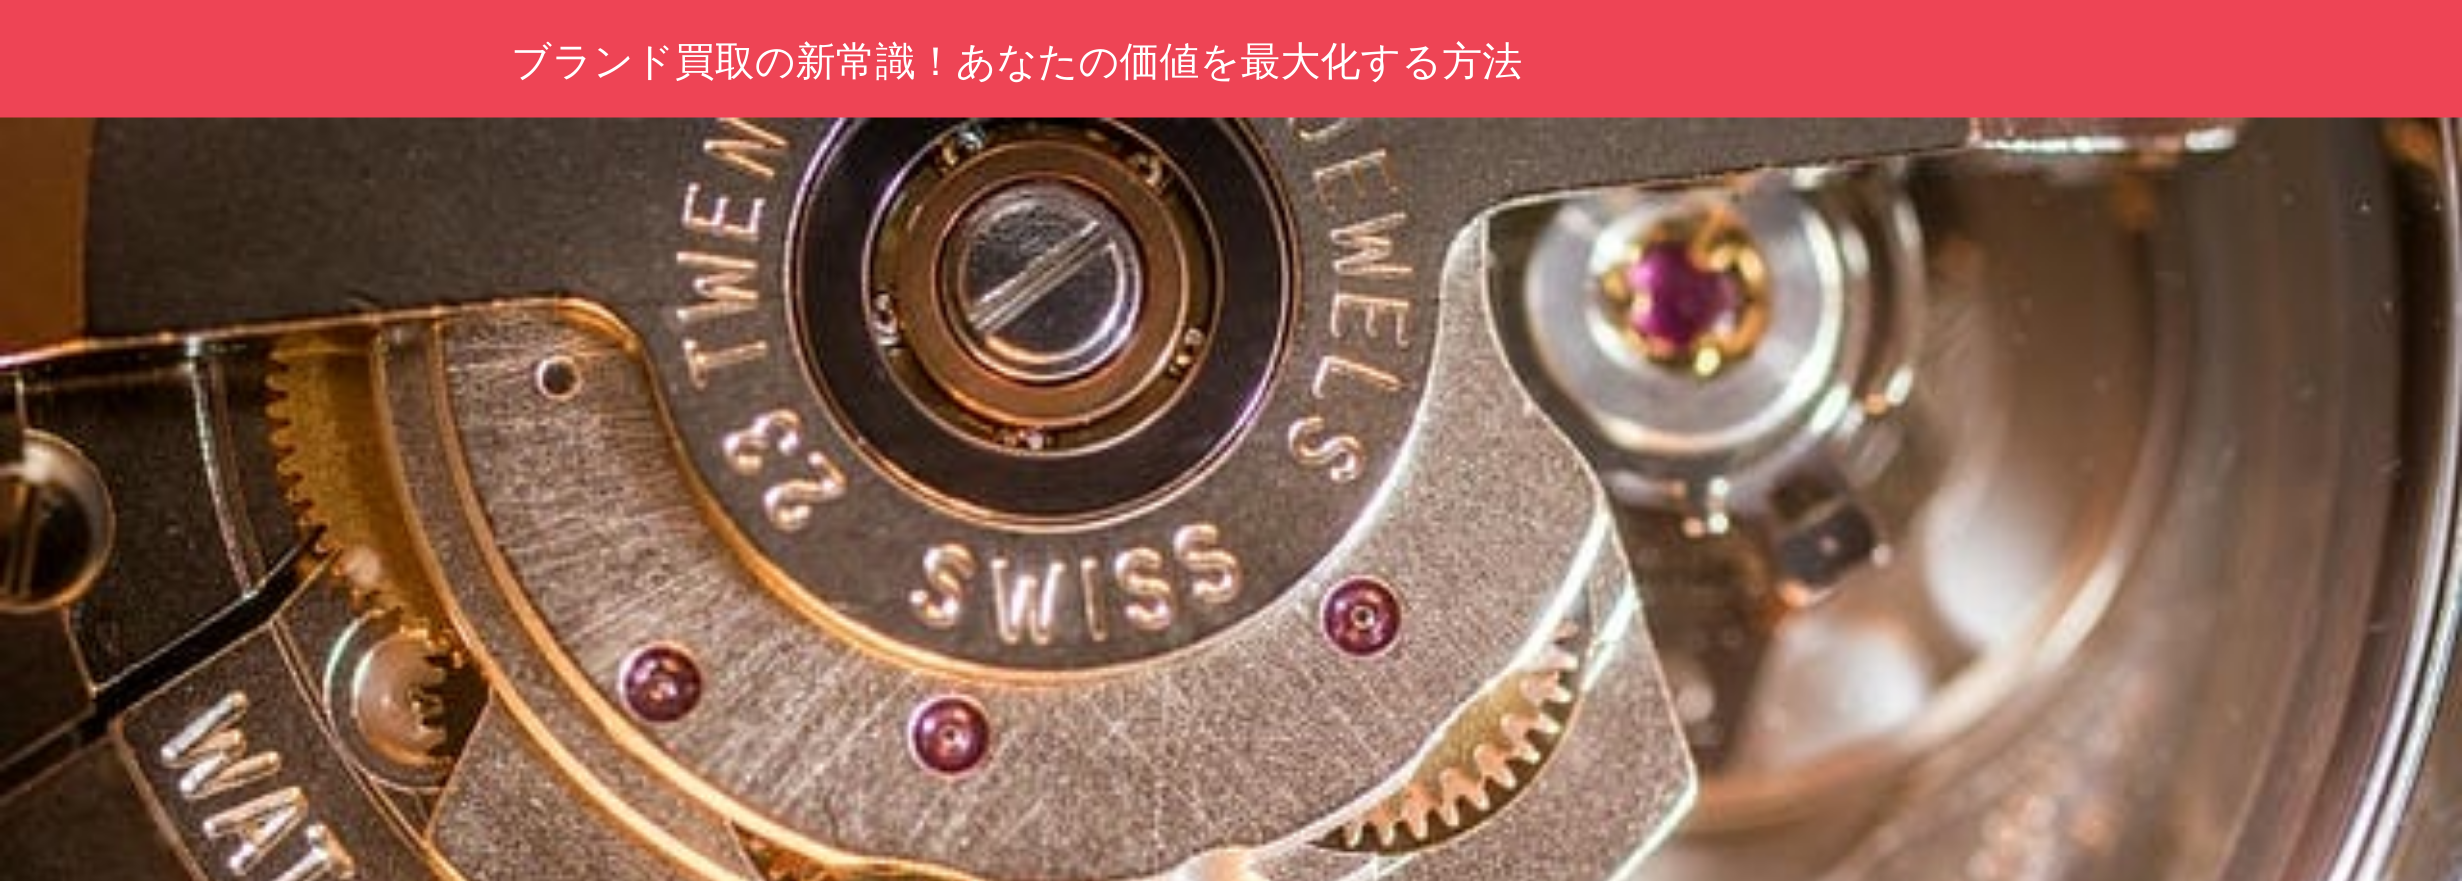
#include <cairo/cairo.h>
#include <math.h>
#include <stddef.h>

static cairo_t *cr;

static void use_color(int r, int g, int b) {
  cairo_set_source_rgb(cr, r / 255.0, g / 255.0, b / 255.0);
}

static void text(double x, double y, const char *s, const char *family, double size, int italic, int bold, int r, int g, int b) {
  cairo_select_font_face(cr, family, italic ? CAIRO_FONT_SLANT_ITALIC : CAIRO_FONT_SLANT_NORMAL,
    bold ? CAIRO_FONT_WEIGHT_BOLD : CAIRO_FONT_WEIGHT_NORMAL);
  cairo_set_font_size(cr, size);
  use_color(r, g, b);
  cairo_move_to(cr, x, y);
  cairo_show_text(cr, s);
}

static void picture(const char *path, double x, double y, double w, double h) {
  cairo_surface_t *image = cairo_image_surface_create_from_png(path);
  cairo_save(cr);
  cairo_set_source_surface(cr, image, x, y);
  cairo_rectangle(cr, x, y, w, h);
  cairo_fill(cr);
  cairo_restore(cr);
  cairo_surface_destroy(image);
}

static void draw(void) {
  use_color(238, 68, 85);
  cairo_paint(cr);
  picture("img_01.png", 0, 117, 2462, 764);
  text(511, 75, "ブランド買取の新常識！あなたの価値を最大化する方法", "WenQuanYi Zen Hei Medium", 40, 0, 0, 255, 255, 255);
}

int main(void) {
  cairo_surface_t *surface = cairo_image_surface_create(CAIRO_FORMAT_RGB24, 2462, 881);
  cr = cairo_create(surface);
  cairo_font_options_t *options = cairo_font_options_create();
  cairo_font_options_set_hint_metrics(options, CAIRO_HINT_METRICS_OFF);
  cairo_font_options_set_hint_style(options, CAIRO_HINT_STYLE_NONE);
  cairo_set_font_options(cr, options);
  cairo_set_miter_limit(cr, 4);
  draw();
  cairo_surface_write_to_png(surface, "out.png");
  cairo_font_options_destroy(options);
  cairo_destroy(cr);
  cairo_surface_destroy(surface);
  return 0;
}
